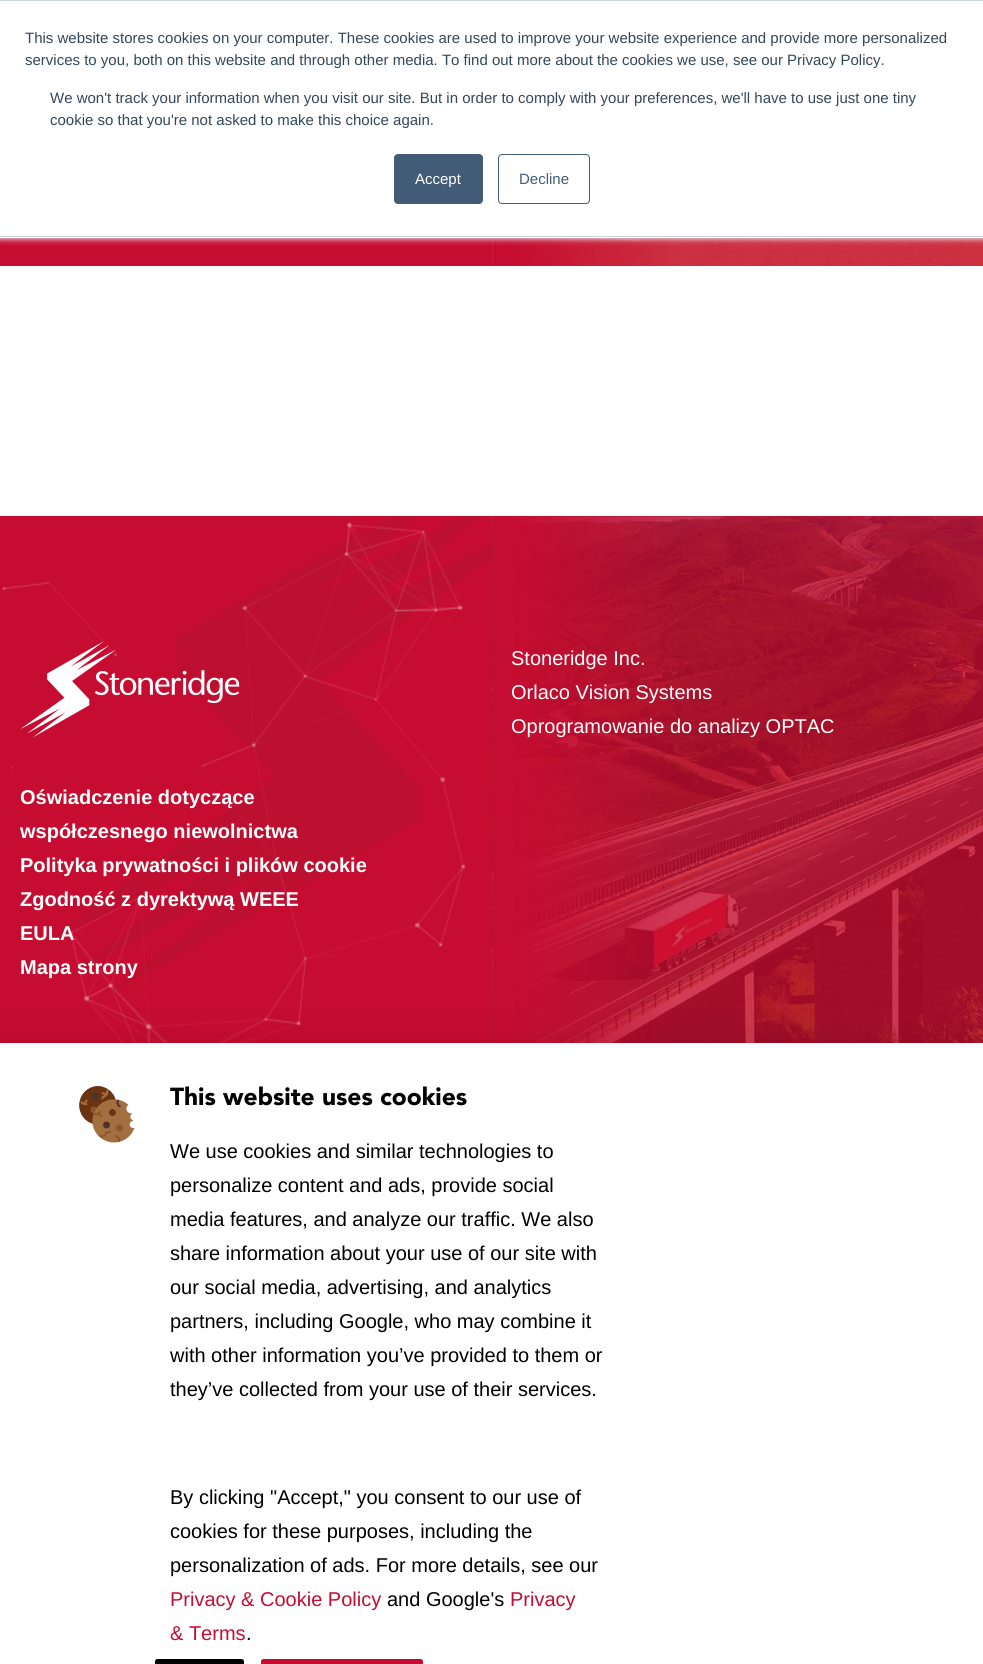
#include <cairo/cairo.h>
#include <math.h>
#include <stddef.h>

static cairo_t *cr;

static void use_color(int r, int g, int b) {
  cairo_set_source_rgb(cr, r / 255.0, g / 255.0, b / 255.0);
}

static void text(double x, double y, const char *s, const char *family, double size, int italic, int bold, int r, int g, int b) {
  cairo_select_font_face(cr, family, italic ? CAIRO_FONT_SLANT_ITALIC : CAIRO_FONT_SLANT_NORMAL,
    bold ? CAIRO_FONT_WEIGHT_BOLD : CAIRO_FONT_WEIGHT_NORMAL);
  cairo_set_font_size(cr, size);
  use_color(r, g, b);
  cairo_move_to(cr, x, y);
  cairo_show_text(cr, s);
}

static void box(double x, double y, double w, double h, int r, int g, int b) {
  use_color(r, g, b);
  cairo_rectangle(cr, x, y, w, h);
  cairo_fill(cr);
}

static void round_rect(double x, double y, double w, double h, double r) {
  cairo_new_sub_path(cr);
  cairo_arc(cr, x + w - r, y + h - r, r, 0, M_PI / 2);
  cairo_arc(cr, x + r, y + h - r, r, M_PI / 2, M_PI);
  cairo_arc(cr, x + r, y + r, r, M_PI, 1.5 * M_PI);
  cairo_arc(cr, x + w - r, y + r, r, 1.5 * M_PI, 2 * M_PI);
  cairo_close_path(cr);
}

static void shadow(double x, double y, double w, double h, double r, double blur, double alpha) {
  cairo_push_group_with_content(cr, CAIRO_CONTENT_ALPHA);
  cairo_set_operator(cr, CAIRO_OPERATOR_SOURCE);
  for (int i = 15; i >= -15 && fmin(w, h) + blur * i / 3 > 0; i -= 2) {
    double e = blur * i / 6;
    cairo_set_source_rgba(cr, 0, 0, 0, alpha * erfc((i - 1) / 8.5) / 2);
    round_rect(x - e, y - e, w + 2 * e, h + 2 * e, fmax(0, fmin(r + e + blur * .6, fmin(w, h) / 2 + e)));
    cairo_fill(cr);
  }
  cairo_pattern_t *soft = cairo_pop_group(cr);
  cairo_mask(cr, soft);
  cairo_pattern_destroy(soft);
}

static void picture(const char *path, double x, double y, double w, double h) {
  cairo_surface_t *image = cairo_image_surface_create_from_png(path);
  cairo_save(cr);
  cairo_set_source_surface(cr, image, x, y);
  cairo_rectangle(cr, x, y, w, h);
  cairo_fill(cr);
  cairo_restore(cr);
  cairo_surface_destroy(image);
}

static void draw(void) {
  cairo_pattern_t *gradient;
  use_color(198, 12, 48);
  cairo_paint(cr);
  picture("img_01.png", 492, 238, 491, 28);
  gradient = cairo_pattern_create_linear(493, 191, 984, 191);
  cairo_pattern_add_color_stop_rgba(gradient, 0.03, 0.776, 0.047, 0.188, 1);
  cairo_pattern_add_color_stop_rgba(gradient, 0.38, 0.776, 0.047, 0.188, 0);
  cairo_set_source(cr, gradient);
  cairo_pattern_destroy(gradient);
  cairo_rectangle(cr, 493, 238, 174, 28);
  cairo_fill(cr);
  picture("img_02.png", 599, 238, 43, 4);
  use_color(234, 240, 246);
  shadow(0, 1, 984, 238, 0, 3, 1);
  box(0, 1, 983, 237, 255, 255, 255);
  box(0, 0, 983, 1, 203, 214, 226);
  box(0, 236, 983, 1, 203, 214, 226);
  use_color(66, 91, 118);
  round_rect(394.5, 154.5, 88, 49, 3.5);
  cairo_fill_preserve(cr);
  cairo_set_line_width(cr, 1);
  cairo_stroke(cr);
  round_rect(498.5, 154.5, 91, 49, 3.5);
  cairo_stroke(cr);
  box(0, 266, 983, 250, 255, 255, 255);
  cairo_save(cr);
  cairo_rectangle(cr, 29, 516, 545, 487);
  cairo_clip(cr);
  use_color(189, 16, 48);
  cairo_new_path(cr);
  cairo_move_to(cr, 177, 637);
  cairo_line_to(cr, 177, 671);
  cairo_line_to(cr, 275, 776);
  cairo_line_to(cr, 29, 953);
  cairo_line_to(cr, 247, 840);
  cairo_line_to(cr, 60, 982);
  cairo_line_to(cr, 280, 861);
  cairo_line_to(cr, 96, 1002);
  cairo_line_to(cr, 419, 820);
  cairo_line_to(cr, 419, 786);
  cairo_line_to(cr, 320, 680);
  cairo_line_to(cr, 574, 500);
  cairo_line_to(cr, 348, 617);
  cairo_line_to(cr, 535, 476);
  cairo_line_to(cr, 316, 595);
  cairo_line_to(cr, 500, 454);
  cairo_close_path(cr);
  cairo_fill(cr);
  cairo_restore(cr);
  picture("img_03.png", 492, 516, 491, 527);
  gradient = cairo_pattern_create_linear(493, 813, 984, 813);
  cairo_pattern_add_color_stop_rgba(gradient, 0.03, 0.776, 0.047, 0.188, 1);
  cairo_pattern_add_color_stop_rgba(gradient, 0.38, 0.776, 0.047, 0.188, 0);
  cairo_set_source(cr, gradient);
  cairo_pattern_destroy(gradient);
  cairo_rectangle(cr, 493, 516, 180, 527);
  cairo_fill(cr);
  picture("img_04.png", 2, 522, 464, 521);
  picture("img_05.png", 20, 641, 220, 97);
  use_color(0, 0, 0);
  shadow(0, 1043, 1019, 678, 0, 19, 0.1);
  box(0, 1043, 983, 621, 255, 255, 255);
  picture("img_06.png", 79, 1086, 56, 57);
  use_color(0, 0, 0);
  round_rect(155, 1659, 89, 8, 2.5);
  cairo_fill(cr);
  use_color(198, 12, 48);
  round_rect(261, 1659, 162, 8, 2.5);
  cairo_fill(cr);
  text(25, 43, "This website stores cookies on your computer. These cookies are used to improve your website experience and provide more personalized", "Liberation Sans", 15, 0, 0, 51, 71, 91);
  text(25, 65, "services to you, both on this website and through other media. To find out more about the cookies we use, see our Privacy Policy.", "Liberation Sans", 15, 0, 0, 51, 71, 91);
  text(50, 103, "We won't track your information when you visit our site. But in order to comply with your preferences, we'll have to use just one tiny", "Liberation Sans", 15, 0, 0, 51, 71, 91);
  text(50, 125, "cookie so that you're not asked to make this choice again.", "Liberation Sans", 15, 0, 0, 51, 71, 91);
  text(415, 184, "Accept", "Liberation Sans", 15, 0, 0, 255, 255, 255);
  text(519, 184, "Decline", "Liberation Sans", 15, 0, 0, 66, 91, 118);
  text(511, 665, "Stoneridge Inc.", "Liberation Sans", 20, 0, 0, 255, 255, 255);
  text(511, 699, "Orlaco Vision Systems", "Liberation Sans", 20, 0, 0, 255, 255, 255);
  text(511, 733, "Oprogramowanie do analizy OPTAC", "Liberation Sans", 20, 0, 0, 255, 255, 255);
  text(20, 804, "Oświadczenie dotyczące", "Liberation Sans", 20, 0, 1, 255, 255, 255);
  text(20, 838, "współczesnego niewolnictwa", "Liberation Sans", 20, 0, 1, 255, 255, 255);
  text(20, 872, "Polityka prywatności i plików cookie", "Liberation Sans", 20, 0, 1, 255, 255, 255);
  text(20, 906, "Zgodność z dyrektywą WEEE", "Liberation Sans", 20, 0, 1, 255, 255, 255);
  text(20, 940, "EULA", "Liberation Sans", 20, 0, 1, 255, 255, 255);
  text(20, 974, "Mapa strony", "Liberation Sans", 20, 0, 1, 255, 255, 255);
  text(170, 1105, "This website uses cookies", "Avenir Black", 24.5, 0, 0, 0, 0, 0);
  text(170, 1158, "We use cookies and similar technologies to", "Liberation Sans", 20, 0, 0, 0, 0, 0);
  text(170, 1192, "personalize content and ads, provide social", "Liberation Sans", 20, 0, 0, 0, 0, 0);
  text(170, 1226, "media features, and analyze our traffic. We also", "Liberation Sans", 20, 0, 0, 0, 0, 0);
  text(170, 1260, "share information about your use of our site with", "Liberation Sans", 20, 0, 0, 0, 0, 0);
  text(170, 1294, "our social media, advertising, and analytics", "Liberation Sans", 20, 0, 0, 0, 0, 0);
  text(170, 1328, "partners, including Google, who may combine it", "Liberation Sans", 20, 0, 0, 0, 0, 0);
  text(170, 1362, "with other information you’ve provided to them or", "Liberation Sans", 20, 0, 0, 0, 0, 0);
  text(170, 1396, "they’ve collected from your use of their services.", "Liberation Sans", 20, 0, 0, 0, 0, 0);
  text(170, 1504, "By clicking \"Accept,\" you consent to our use of", "Liberation Sans", 20, 0, 0, 0, 0, 0);
  text(170, 1538, "cookies for these purposes, including the", "Liberation Sans", 20, 0, 0, 0, 0, 0);
  text(170, 1572, "personalization of ads. For more details, see our", "Liberation Sans", 20, 0, 0, 0, 0, 0);
  text(170, 1606, "Privacy & Cookie Policy", "Liberation Sans", 20, 0, 0, 198, 12, 48);
  text(387, 1606, "and Google's", "Liberation Sans", 20, 0, 0, 0, 0, 0);
  text(510, 1606, "Privacy", "Liberation Sans", 20, 0, 0, 198, 12, 48);
  text(170, 1640, "& Terms", "Liberation Sans", 20, 0, 0, 198, 12, 48);
  text(246, 1640, ".", "Liberation Sans", 20, 0, 0, 0, 0, 0);
}

int main(void) {
  cairo_surface_t *surface = cairo_image_surface_create(CAIRO_FORMAT_RGB24, 983, 1664);
  cr = cairo_create(surface);
  cairo_font_options_t *options = cairo_font_options_create();
  cairo_font_options_set_hint_metrics(options, CAIRO_HINT_METRICS_OFF);
  cairo_font_options_set_hint_style(options, CAIRO_HINT_STYLE_NONE);
  cairo_set_font_options(cr, options);
  cairo_set_miter_limit(cr, 4);
  draw();
  cairo_surface_write_to_png(surface, "out.png");
  cairo_font_options_destroy(options);
  cairo_destroy(cr);
  cairo_surface_destroy(surface);
  return 0;
}
